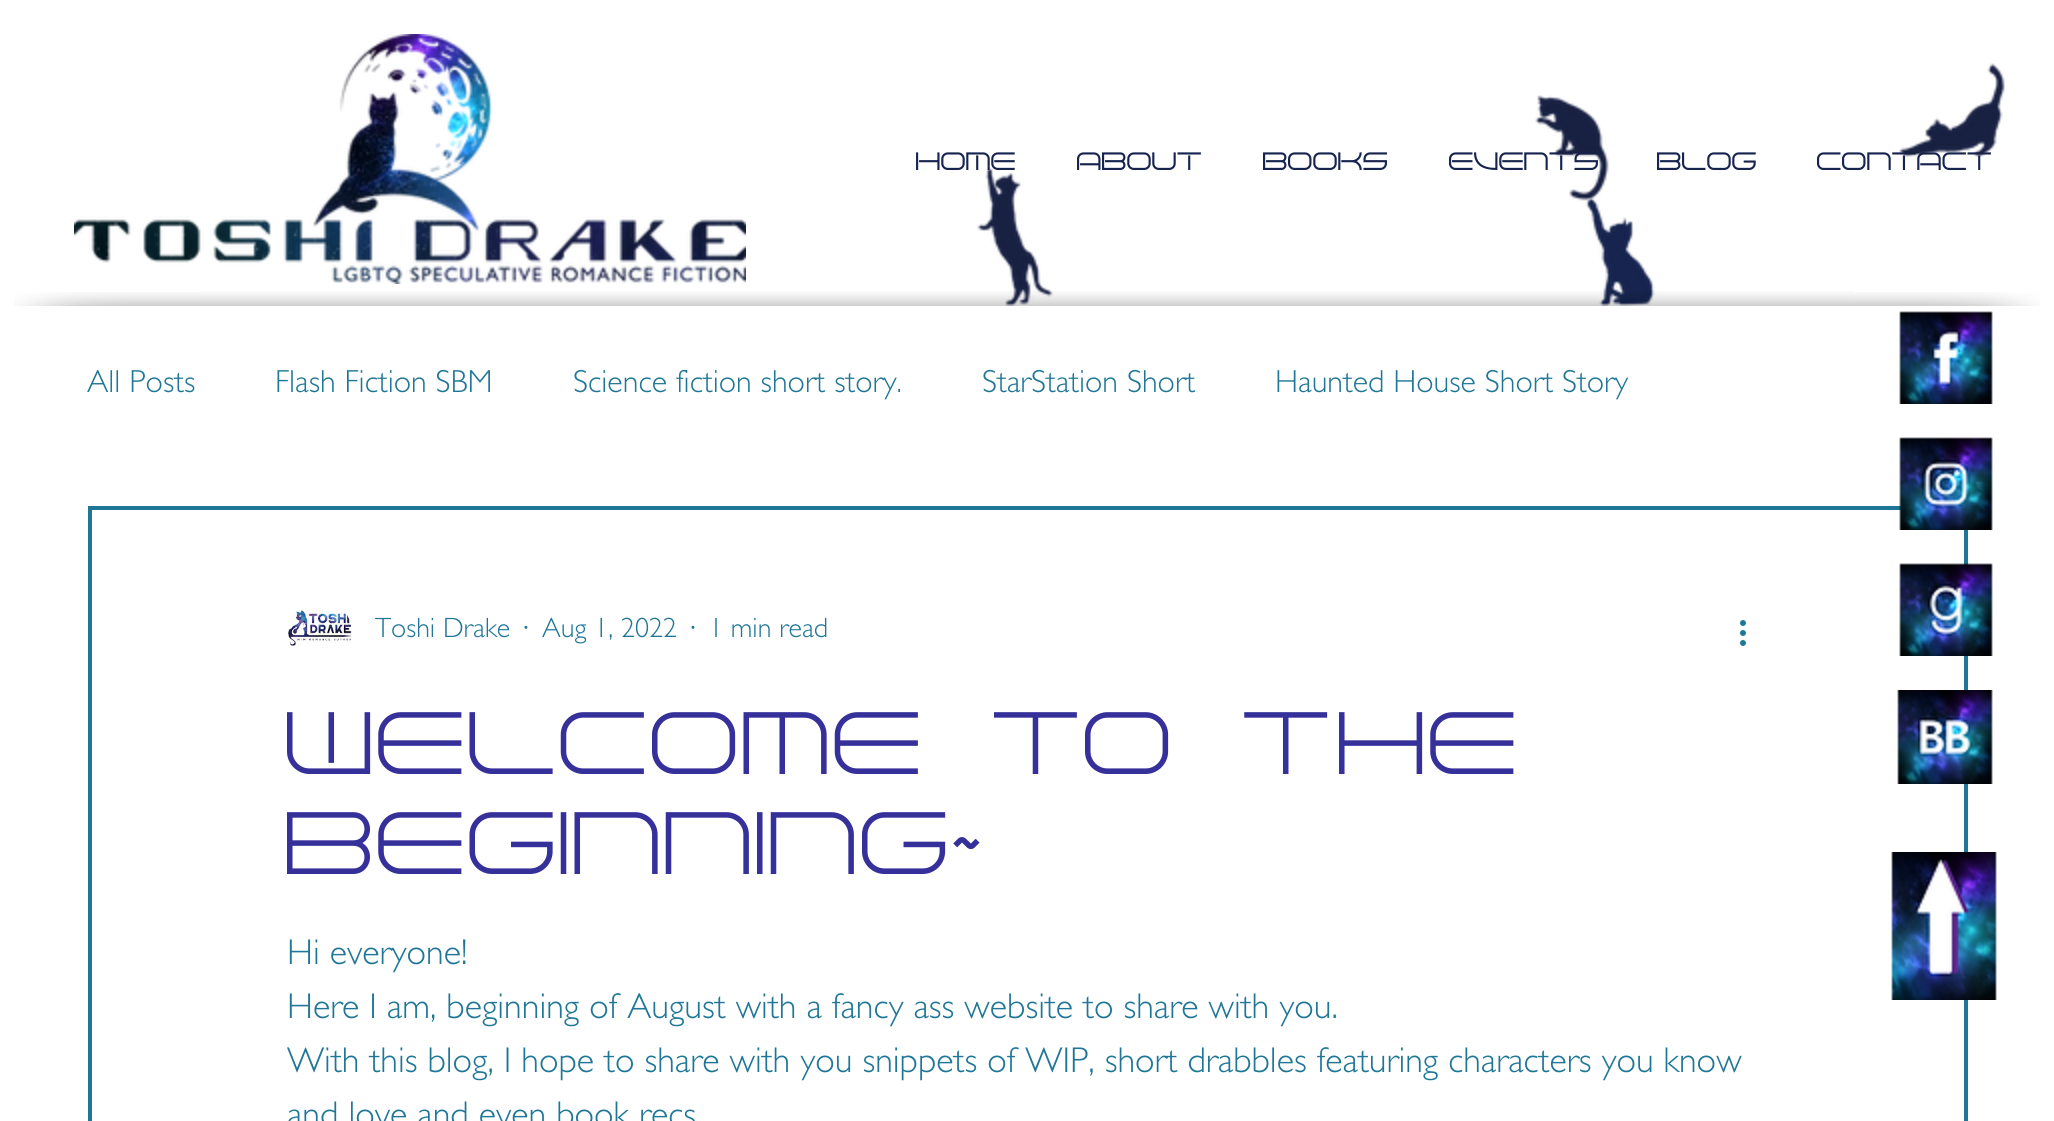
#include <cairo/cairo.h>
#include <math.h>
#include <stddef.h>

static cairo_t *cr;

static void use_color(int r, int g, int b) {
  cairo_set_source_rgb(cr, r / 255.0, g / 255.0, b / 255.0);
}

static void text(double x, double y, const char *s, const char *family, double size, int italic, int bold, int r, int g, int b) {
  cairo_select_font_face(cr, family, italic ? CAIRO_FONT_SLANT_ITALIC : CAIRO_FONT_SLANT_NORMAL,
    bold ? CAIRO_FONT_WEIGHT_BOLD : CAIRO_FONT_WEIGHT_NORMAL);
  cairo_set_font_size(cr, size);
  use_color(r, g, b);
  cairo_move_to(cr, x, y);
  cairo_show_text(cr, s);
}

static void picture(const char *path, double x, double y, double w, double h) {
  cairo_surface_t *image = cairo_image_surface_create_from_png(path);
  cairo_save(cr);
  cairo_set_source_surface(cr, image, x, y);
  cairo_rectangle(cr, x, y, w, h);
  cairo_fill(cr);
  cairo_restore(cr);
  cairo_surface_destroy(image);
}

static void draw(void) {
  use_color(255, 255, 255);
  cairo_paint(cr);
  picture("img_01.png", 74, 34, 672, 250);
  picture("img_06.png", 14, 292, 186, 14);
  picture("img_08.png", 1854, 292, 186, 14);
  cairo_rectangle(cr, 90, 508, 1876, 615);
  use_color(31, 118, 150);
  cairo_set_line_width(cr, 4);
  cairo_stroke(cr);
  picture("img_09.png", 288, 610, 64, 38);
  picture("img_10.png", 1740, 620, 6, 26);
  picture("img_11.png", 1899, 311, 94, 93);
  picture("img_12.png", 1899, 437, 94, 93);
  picture("img_13.png", 1899, 563, 94, 93);
  picture("img_14.png", 1897, 690, 96, 94);
  picture("img_15.png", 1891, 852, 106, 148);
  text(915, 170, "HOME", "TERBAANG", 22, 0, 1, 22, 36, 79);
  text(1077, 170, "ABOUT", "TERBAANG", 22, 0, 1, 22, 36, 79);
  text(1263, 170, "BOOKS", "TERBAANG", 22, 0, 1, 22, 36, 79);
  text(1449, 170, "EVENTS", "TERBAANG", 22, 0, 1, 22, 36, 79);
  picture("img_02.png", 1535, 95, 74, 106);
  text(1657, 170, "BLOG", "TERBAANG", 22, 0, 1, 22, 36, 79);
  text(1817, 170, "CONTACT", "TERBAANG", 22, 0, 1, 22, 36, 79);
  picture("img_03.png", 1899, 63, 106, 94);
  picture("img_04.png", 977, 168, 76, 138);
  picture("img_05.png", 1585, 198, 70, 108);
  picture("img_07.png", 200, 291, 1654, 15);
  text(87, 392, "All Posts", "Gill Sans Light", 32, 0, 0, 31, 118, 150);
  text(275, 392, "Flash Fiction SBM", "Gill Sans Light", 32, 0, 0, 31, 118, 150);
  text(573, 392, "Science fiction short story.", "Gill Sans Light", 32, 0, 0, 31, 118, 150);
  text(982, 392, "StarStation Short", "Gill Sans Light", 32, 0, 0, 31, 118, 150);
  text(1275, 392, "Haunted House Short Story", "Gill Sans Light", 32, 0, 0, 31, 118, 150);
  text(375, 637, "Toshi Drake", "Gill Sans Light", 28, 0, 0, 31, 118, 150);
  text(522, 637, "·", "Gill Sans Light", 28, 0, 0, 31, 118, 150);
  text(542, 637, "Aug 1, 2022", "Gill Sans Light", 28, 0, 0, 31, 118, 150);
  text(689, 637, "·", "Gill Sans Light", 28, 0, 0, 31, 118, 150);
  text(709, 637, "1 min read", "Gill Sans Light", 28, 0, 0, 31, 118, 150);
  text(287, 774, "Welcome to the", "TERBAANG", 80, 0, 0, 54, 48, 154);
  text(287, 874, "beginning~", "TERBAANG", 80, 0, 0, 54, 48, 154);
  text(287, 964, "Hi everyone!", "Gill Sans Light", 36, 0, 0, 31, 118, 150);
  text(287, 1018, "Here I am, beginning of August with a fancy ass website to share with you.", "Gill Sans Light", 36, 0, 0, 31, 118, 150);
  text(287, 1072, "With this blog, I hope to share with you snippets of WIP, short drabbles featuring characters you know", "Gill Sans Light", 36, 0, 0, 31, 118, 150);
  text(287, 1126, "and love and even book recs", "Gill Sans Light", 36, 0, 0, 31, 118, 150);
}

int main(void) {
  cairo_surface_t *surface = cairo_image_surface_create(CAIRO_FORMAT_RGB24, 2054, 1121);
  cr = cairo_create(surface);
  cairo_font_options_t *options = cairo_font_options_create();
  cairo_font_options_set_hint_metrics(options, CAIRO_HINT_METRICS_OFF);
  cairo_font_options_set_hint_style(options, CAIRO_HINT_STYLE_NONE);
  cairo_set_font_options(cr, options);
  cairo_set_miter_limit(cr, 4);
  draw();
  cairo_surface_write_to_png(surface, "out.png");
  cairo_font_options_destroy(options);
  cairo_destroy(cr);
  cairo_surface_destroy(surface);
  return 0;
}
